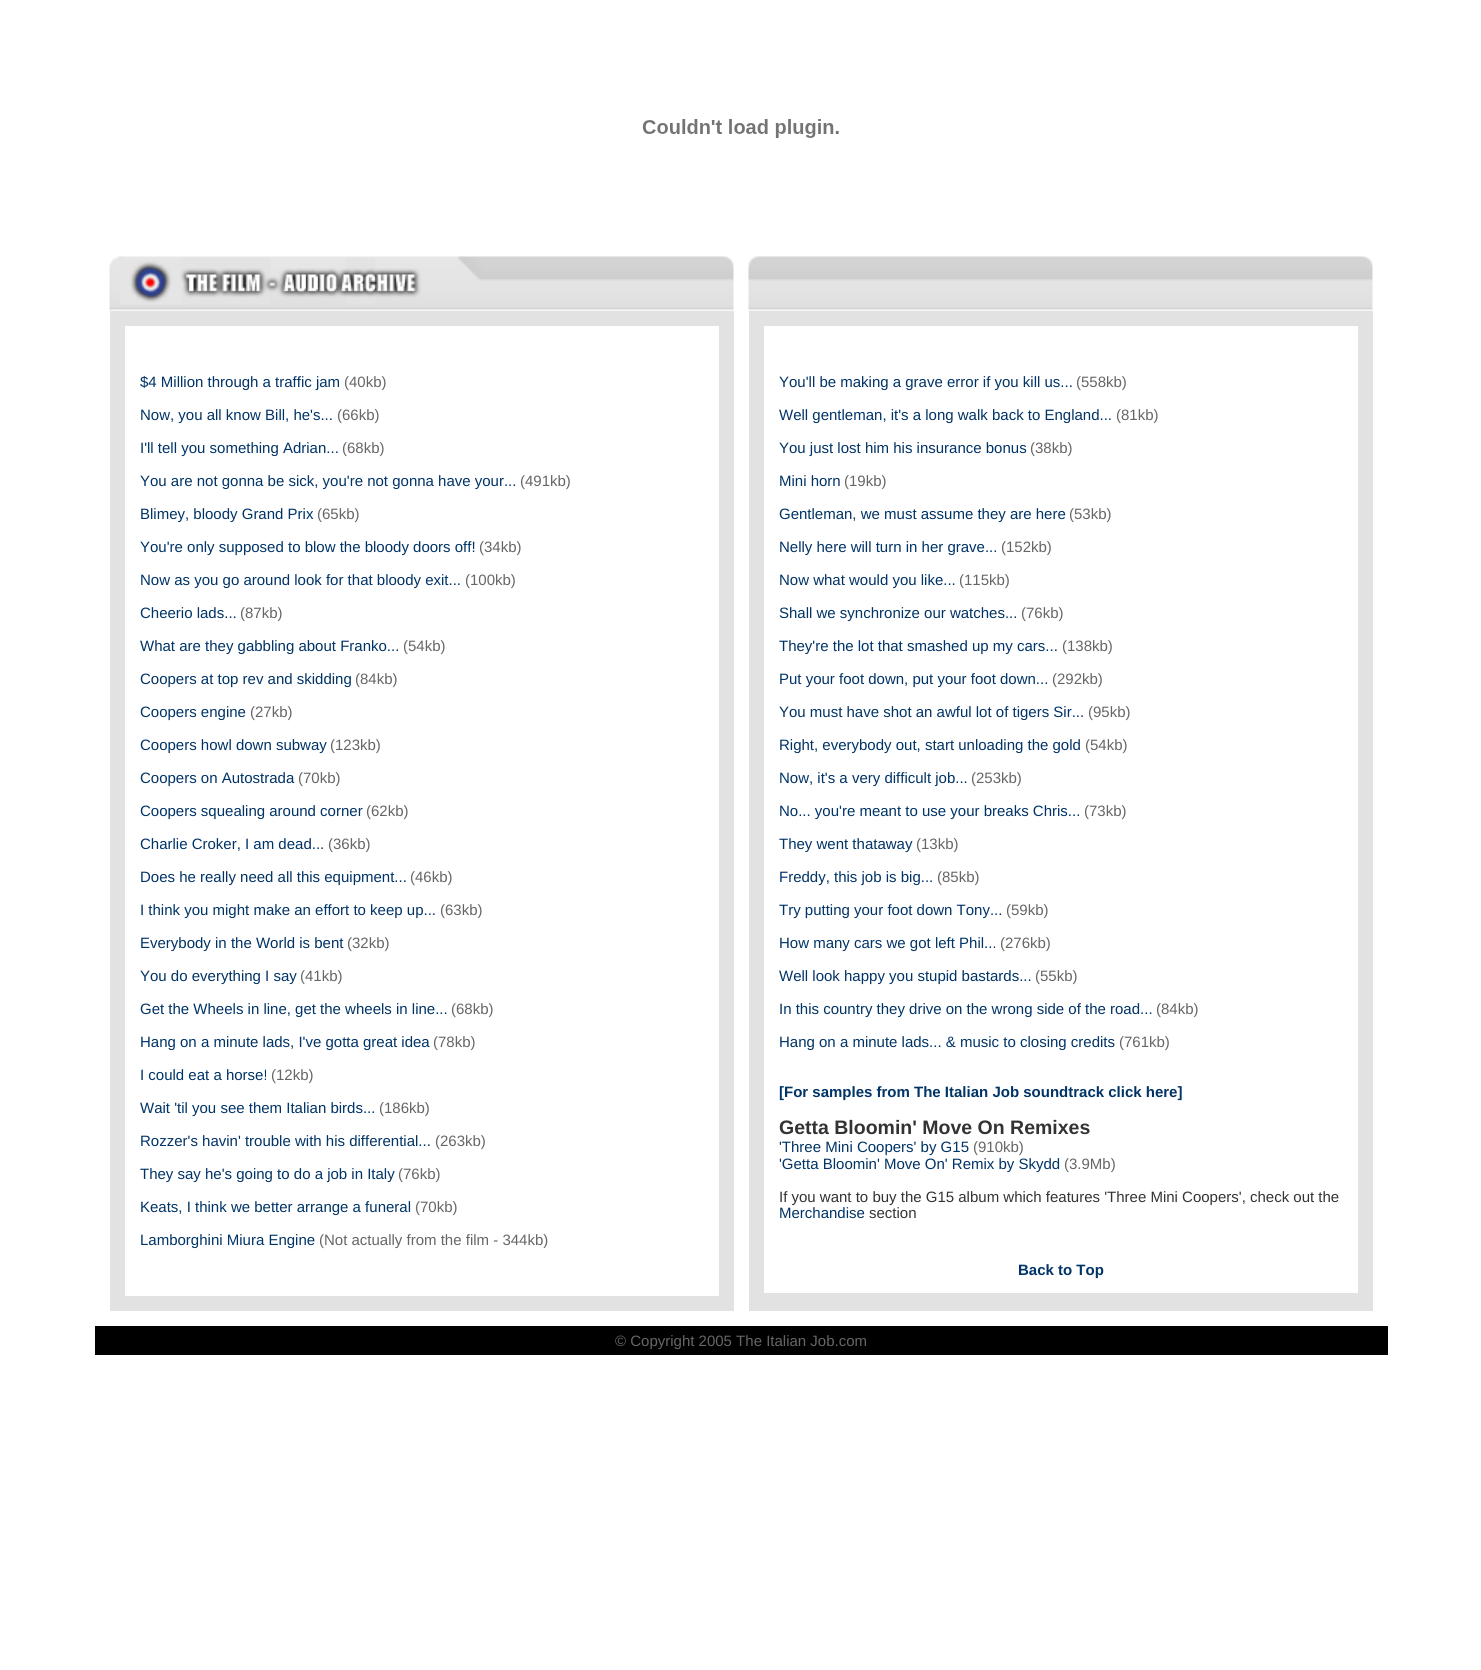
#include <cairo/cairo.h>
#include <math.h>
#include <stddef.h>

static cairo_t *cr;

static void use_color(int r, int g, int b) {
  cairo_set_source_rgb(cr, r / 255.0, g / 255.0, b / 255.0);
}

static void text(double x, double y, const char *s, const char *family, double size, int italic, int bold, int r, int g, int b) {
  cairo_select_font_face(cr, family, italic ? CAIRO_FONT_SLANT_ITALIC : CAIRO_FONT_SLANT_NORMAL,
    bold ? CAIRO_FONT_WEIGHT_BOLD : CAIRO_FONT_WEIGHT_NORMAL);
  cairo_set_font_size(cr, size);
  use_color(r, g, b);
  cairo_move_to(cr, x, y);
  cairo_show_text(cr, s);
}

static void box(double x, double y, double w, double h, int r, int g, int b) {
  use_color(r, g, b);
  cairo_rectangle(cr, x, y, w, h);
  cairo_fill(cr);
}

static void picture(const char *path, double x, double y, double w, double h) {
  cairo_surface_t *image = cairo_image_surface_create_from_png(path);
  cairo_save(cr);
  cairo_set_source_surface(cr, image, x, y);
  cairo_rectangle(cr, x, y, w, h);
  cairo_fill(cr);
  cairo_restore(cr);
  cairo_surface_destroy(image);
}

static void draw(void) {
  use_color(255, 255, 255);
  cairo_paint(cr);
  picture("img_01.png", 642, 119, 197, 19);
  box(110, 311, 624, 1000, 226, 226, 226);
  picture("img_02.png", 109, 256, 625, 55);
  box(125, 326, 594, 970, 255, 255, 255);
  box(749, 311, 624, 1000, 226, 226, 226);
  picture("img_03.png", 748, 256, 625, 55);
  box(764, 326, 594, 967, 255, 255, 255);
  box(95, 1326, 1293, 29, 0, 0, 0);
  text(140, 387, "$4 Million through a traffic jam", "Liberation Sans", 15, 0, 0, 0, 51, 102);
  text(344, 387, "(40kb)", "Liberation Sans", 15, 0, 0, 102, 102, 102);
  text(140, 420, "Now, you all know Bill, he's...", "Liberation Sans", 15, 0, 0, 0, 51, 102);
  text(337, 420, "(66kb)", "Liberation Sans", 15, 0, 0, 102, 102, 102);
  text(140, 453, "I'll tell you something Adrian...", "Liberation Sans", 15, 0, 0, 0, 51, 102);
  text(342, 453, "(68kb)", "Liberation Sans", 15, 0, 0, 102, 102, 102);
  text(140, 486, "You are not gonna be sick, you're not gonna have your...", "Liberation Sans", 15, 0, 0, 0, 51, 102);
  text(520, 486, "(491kb)", "Liberation Sans", 15, 0, 0, 102, 102, 102);
  text(140, 519, "Blimey, bloody Grand Prix", "Liberation Sans", 15, 0, 0, 0, 51, 102);
  text(317, 519, "(65kb)", "Liberation Sans", 15, 0, 0, 102, 102, 102);
  text(140, 552, "You're only supposed to blow the bloody doors off!", "Liberation Sans", 15, 0, 0, 0, 51, 102);
  text(479, 552, "(34kb)", "Liberation Sans", 15, 0, 0, 102, 102, 102);
  text(140, 585, "Now as you go around look for that bloody exit...", "Liberation Sans", 15, 0, 0, 0, 51, 102);
  text(465, 585, "(100kb)", "Liberation Sans", 15, 0, 0, 102, 102, 102);
  text(140, 618, "Cheerio lads...", "Liberation Sans", 15, 0, 0, 0, 51, 102);
  text(240, 618, "(87kb)", "Liberation Sans", 15, 0, 0, 102, 102, 102);
  text(140, 651, "What are they gabbling about Franko...", "Liberation Sans", 15, 0, 0, 0, 51, 102);
  text(403, 651, "(54kb)", "Liberation Sans", 15, 0, 0, 102, 102, 102);
  text(140, 684, "Coopers at top rev and skidding", "Liberation Sans", 15, 0, 0, 0, 51, 102);
  text(355, 684, "(84kb)", "Liberation Sans", 15, 0, 0, 102, 102, 102);
  text(140, 717, "Coopers engine", "Liberation Sans", 15, 0, 0, 0, 51, 102);
  text(250, 717, "(27kb)", "Liberation Sans", 15, 0, 0, 102, 102, 102);
  text(140, 750, "Coopers howl down subway", "Liberation Sans", 15, 0, 0, 0, 51, 102);
  text(330, 750, "(123kb)", "Liberation Sans", 15, 0, 0, 102, 102, 102);
  text(140, 783, "Coopers on Autostrada", "Liberation Sans", 15, 0, 0, 0, 51, 102);
  text(298, 783, "(70kb)", "Liberation Sans", 15, 0, 0, 102, 102, 102);
  text(140, 816, "Coopers squealing around corner", "Liberation Sans", 15, 0, 0, 0, 51, 102);
  text(366, 816, "(62kb)", "Liberation Sans", 15, 0, 0, 102, 102, 102);
  text(140, 849, "Charlie Croker, I am dead...", "Liberation Sans", 15, 0, 0, 0, 51, 102);
  text(328, 849, "(36kb)", "Liberation Sans", 15, 0, 0, 102, 102, 102);
  text(140, 882, "Does he really need all this equipment...", "Liberation Sans", 15, 0, 0, 0, 51, 102);
  text(410, 882, "(46kb)", "Liberation Sans", 15, 0, 0, 102, 102, 102);
  text(140, 915, "I think you might make an effort to keep up...", "Liberation Sans", 15, 0, 0, 0, 51, 102);
  text(440, 915, "(63kb)", "Liberation Sans", 15, 0, 0, 102, 102, 102);
  text(140, 948, "Everybody in the World is bent", "Liberation Sans", 15, 0, 0, 0, 51, 102);
  text(347, 948, "(32kb)", "Liberation Sans", 15, 0, 0, 102, 102, 102);
  text(140, 981, "You do everything I say", "Liberation Sans", 15, 0, 0, 0, 51, 102);
  text(300, 981, "(41kb)", "Liberation Sans", 15, 0, 0, 102, 102, 102);
  text(140, 1014, "Get the Wheels in line, get the wheels in line...", "Liberation Sans", 15, 0, 0, 0, 51, 102);
  text(451, 1014, "(68kb)", "Liberation Sans", 15, 0, 0, 102, 102, 102);
  text(140, 1047, "Hang on a minute lads, I've gotta great idea", "Liberation Sans", 15, 0, 0, 0, 51, 102);
  text(433, 1047, "(78kb)", "Liberation Sans", 15, 0, 0, 102, 102, 102);
  text(140, 1080, "I could eat a horse!", "Liberation Sans", 15, 0, 0, 0, 51, 102);
  text(271, 1080, "(12kb)", "Liberation Sans", 15, 0, 0, 102, 102, 102);
  text(140, 1113, "Wait 'til you see them Italian birds...", "Liberation Sans", 15, 0, 0, 0, 51, 102);
  text(379, 1113, "(186kb)", "Liberation Sans", 15, 0, 0, 102, 102, 102);
  text(140, 1146, "Rozzer's havin' trouble with his differential...", "Liberation Sans", 15, 0, 0, 0, 51, 102);
  text(435, 1146, "(263kb)", "Liberation Sans", 15, 0, 0, 102, 102, 102);
  text(140, 1179, "They say he's going to do a job in Italy", "Liberation Sans", 15, 0, 0, 0, 51, 102);
  text(398, 1179, "(76kb)", "Liberation Sans", 15, 0, 0, 102, 102, 102);
  text(140, 1212, "Keats, I think we better arrange a funeral", "Liberation Sans", 15, 0, 0, 0, 51, 102);
  text(415, 1212, "(70kb)", "Liberation Sans", 15, 0, 0, 102, 102, 102);
  text(140, 1245, "Lamborghini Miura Engine", "Liberation Sans", 15, 0, 0, 0, 51, 102);
  text(319, 1245, "(Not actually from the film - 344kb)", "Liberation Sans", 15, 0, 0, 102, 102, 102);
  text(779, 387, "You'll be making a grave error if you kill us...", "Liberation Sans", 15, 0, 0, 0, 51, 102);
  text(1076, 387, "(558kb)", "Liberation Sans", 15, 0, 0, 102, 102, 102);
  text(779, 420, "Well gentleman, it's a long walk back to England...", "Liberation Sans", 15, 0, 0, 0, 51, 102);
  text(1116, 420, "(81kb)", "Liberation Sans", 15, 0, 0, 102, 102, 102);
  text(779, 453, "You just lost him his insurance bonus", "Liberation Sans", 15, 0, 0, 0, 51, 102);
  text(1030, 453, "(38kb)", "Liberation Sans", 15, 0, 0, 102, 102, 102);
  text(779, 486, "Mini horn", "Liberation Sans", 15, 0, 0, 0, 51, 102);
  text(844, 486, "(19kb)", "Liberation Sans", 15, 0, 0, 102, 102, 102);
  text(779, 519, "Gentleman, we must assume they are here", "Liberation Sans", 15, 0, 0, 0, 51, 102);
  text(1069, 519, "(53kb)", "Liberation Sans", 15, 0, 0, 102, 102, 102);
  text(779, 552, "Nelly here will turn in her grave...", "Liberation Sans", 15, 0, 0, 0, 51, 102);
  text(1001, 552, "(152kb)", "Liberation Sans", 15, 0, 0, 102, 102, 102);
  text(779, 585, "Now what would you like...", "Liberation Sans", 15, 0, 0, 0, 51, 102);
  text(959, 585, "(115kb)", "Liberation Sans", 15, 0, 0, 102, 102, 102);
  text(779, 618, "Shall we synchronize our watches...", "Liberation Sans", 15, 0, 0, 0, 51, 102);
  text(1021, 618, "(76kb)", "Liberation Sans", 15, 0, 0, 102, 102, 102);
  text(779, 651, "They're the lot that smashed up my cars...", "Liberation Sans", 15, 0, 0, 0, 51, 102);
  text(1062, 651, "(138kb)", "Liberation Sans", 15, 0, 0, 102, 102, 102);
  text(779, 684, "Put your foot down, put your foot down...", "Liberation Sans", 15, 0, 0, 0, 51, 102);
  text(1052, 684, "(292kb)", "Liberation Sans", 15, 0, 0, 102, 102, 102);
  text(779, 717, "You must have shot an awful lot of tigers Sir...", "Liberation Sans", 15, 0, 0, 0, 51, 102);
  text(1088, 717, "(95kb)", "Liberation Sans", 15, 0, 0, 102, 102, 102);
  text(779, 750, "Right, everybody out, start unloading the gold", "Liberation Sans", 15, 0, 0, 0, 51, 102);
  text(1085, 750, "(54kb)", "Liberation Sans", 15, 0, 0, 102, 102, 102);
  text(779, 783, "Now, it's a very difficult job...", "Liberation Sans", 15, 0, 0, 0, 51, 102);
  text(971, 783, "(253kb)", "Liberation Sans", 15, 0, 0, 102, 102, 102);
  text(779, 816, "No... you're meant to use your breaks Chris...", "Liberation Sans", 15, 0, 0, 0, 51, 102);
  text(1084, 816, "(73kb)", "Liberation Sans", 15, 0, 0, 102, 102, 102);
  text(779, 849, "They went thataway", "Liberation Sans", 15, 0, 0, 0, 51, 102);
  text(916, 849, "(13kb)", "Liberation Sans", 15, 0, 0, 102, 102, 102);
  text(779, 882, "Freddy, this job is big...", "Liberation Sans", 15, 0, 0, 0, 51, 102);
  text(937, 882, "(85kb)", "Liberation Sans", 15, 0, 0, 102, 102, 102);
  text(779, 915, "Try putting your foot down Tony...", "Liberation Sans", 15, 0, 0, 0, 51, 102);
  text(1006, 915, "(59kb)", "Liberation Sans", 15, 0, 0, 102, 102, 102);
  text(779, 948, "How many cars we got left Phil...", "Liberation Sans", 15, 0, 0, 0, 51, 102);
  text(1000, 948, "(276kb)", "Liberation Sans", 15, 0, 0, 102, 102, 102);
  text(779, 981, "Well look happy you stupid bastards...", "Liberation Sans", 15, 0, 0, 0, 51, 102);
  text(1035, 981, "(55kb)", "Liberation Sans", 15, 0, 0, 102, 102, 102);
  text(779, 1014, "In this country they drive on the wrong side of the road...", "Liberation Sans", 15, 0, 0, 0, 51, 102);
  text(1156, 1014, "(84kb)", "Liberation Sans", 15, 0, 0, 102, 102, 102);
  text(779, 1047, "Hang on a minute lads... & music to closing credits", "Liberation Sans", 15, 0, 0, 0, 51, 102);
  text(1119, 1047, "(761kb)", "Liberation Sans", 15, 0, 0, 102, 102, 102);
  text(779, 1097, "[For samples from The Italian Job soundtrack click here]", "Liberation Sans", 15, 0, 1, 0, 51, 102);
  text(779, 1134, "Getta Bloomin' Move On Remixes", "Liberation Sans", 19.5, 0, 1, 51, 51, 51);
  text(779, 1152, "'Three Mini Coopers' by G15", "Liberation Sans", 15, 0, 0, 0, 51, 102);
  text(973, 1152, "(910kb)", "Liberation Sans", 15, 0, 0, 102, 102, 102);
  text(779, 1169, "'Getta Bloomin' Move On' Remix by Skydd", "Liberation Sans", 15, 0, 0, 0, 51, 102);
  text(1064, 1169, "(3.9Mb)", "Liberation Sans", 15, 0, 0, 102, 102, 102);
  text(779, 1202, "If you want to buy the G15 album which features 'Three Mini Coopers', check out the", "Liberation Sans", 15, 0, 0, 51, 51, 51);
  text(779, 1218, "Merchandise", "Liberation Sans", 15, 0, 0, 0, 51, 102);
  text(869, 1218, "section", "Liberation Sans", 15, 0, 0, 51, 51, 51);
  text(1018, 1275, "Back to Top", "Liberation Sans", 15, 0, 1, 0, 51, 102);
  text(615, 1346, "© Copyright 2005 The Italian Job.com", "Liberation Sans", 15, 0, 0, 102, 102, 102);
}

int main(void) {
  cairo_surface_t *surface = cairo_image_surface_create(CAIRO_FORMAT_RGB24, 1481, 1670);
  cr = cairo_create(surface);
  cairo_font_options_t *options = cairo_font_options_create();
  cairo_font_options_set_hint_metrics(options, CAIRO_HINT_METRICS_OFF);
  cairo_font_options_set_hint_style(options, CAIRO_HINT_STYLE_NONE);
  cairo_set_font_options(cr, options);
  cairo_set_miter_limit(cr, 4);
  draw();
  cairo_surface_write_to_png(surface, "out.png");
  cairo_font_options_destroy(options);
  cairo_destroy(cr);
  cairo_surface_destroy(surface);
  return 0;
}
